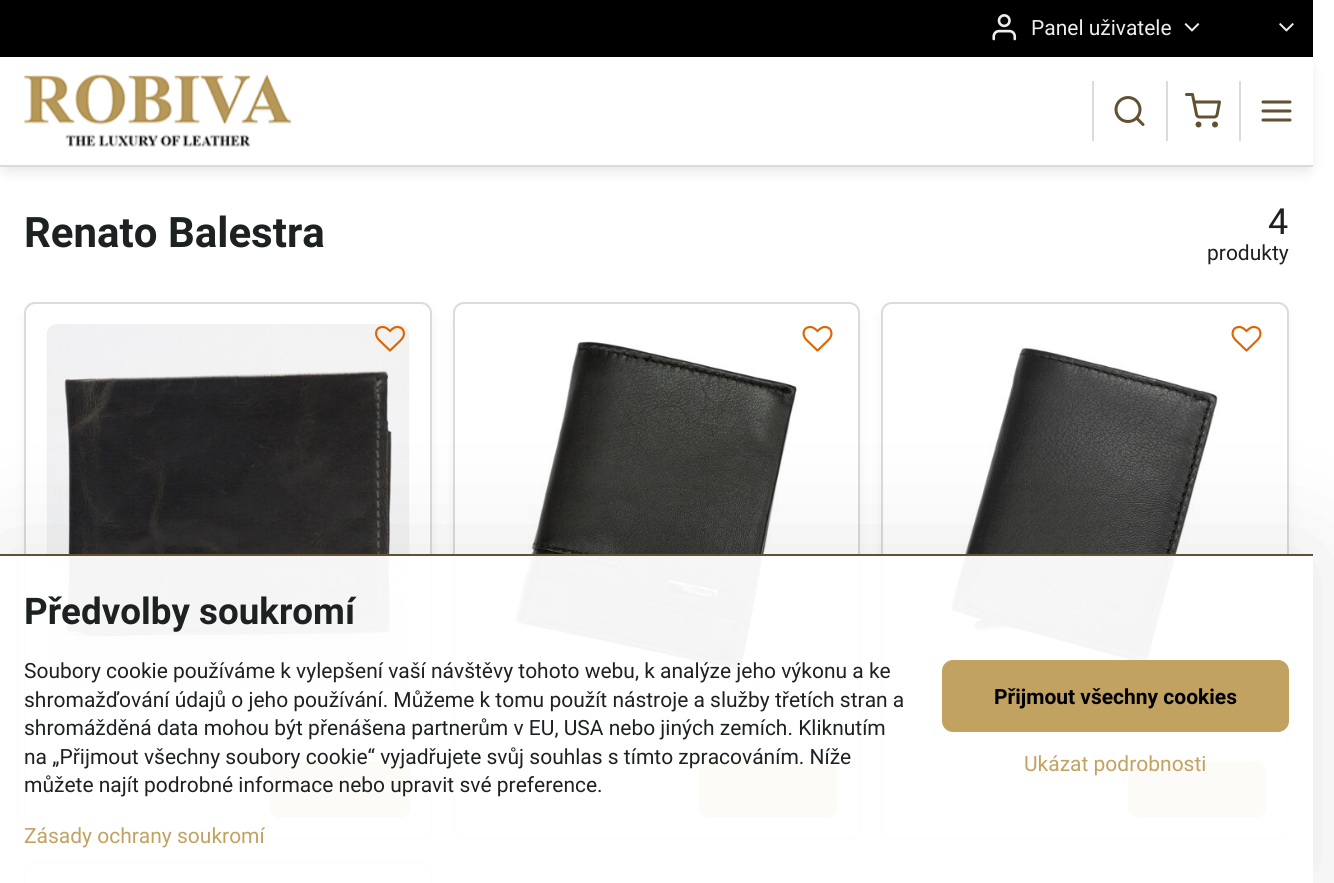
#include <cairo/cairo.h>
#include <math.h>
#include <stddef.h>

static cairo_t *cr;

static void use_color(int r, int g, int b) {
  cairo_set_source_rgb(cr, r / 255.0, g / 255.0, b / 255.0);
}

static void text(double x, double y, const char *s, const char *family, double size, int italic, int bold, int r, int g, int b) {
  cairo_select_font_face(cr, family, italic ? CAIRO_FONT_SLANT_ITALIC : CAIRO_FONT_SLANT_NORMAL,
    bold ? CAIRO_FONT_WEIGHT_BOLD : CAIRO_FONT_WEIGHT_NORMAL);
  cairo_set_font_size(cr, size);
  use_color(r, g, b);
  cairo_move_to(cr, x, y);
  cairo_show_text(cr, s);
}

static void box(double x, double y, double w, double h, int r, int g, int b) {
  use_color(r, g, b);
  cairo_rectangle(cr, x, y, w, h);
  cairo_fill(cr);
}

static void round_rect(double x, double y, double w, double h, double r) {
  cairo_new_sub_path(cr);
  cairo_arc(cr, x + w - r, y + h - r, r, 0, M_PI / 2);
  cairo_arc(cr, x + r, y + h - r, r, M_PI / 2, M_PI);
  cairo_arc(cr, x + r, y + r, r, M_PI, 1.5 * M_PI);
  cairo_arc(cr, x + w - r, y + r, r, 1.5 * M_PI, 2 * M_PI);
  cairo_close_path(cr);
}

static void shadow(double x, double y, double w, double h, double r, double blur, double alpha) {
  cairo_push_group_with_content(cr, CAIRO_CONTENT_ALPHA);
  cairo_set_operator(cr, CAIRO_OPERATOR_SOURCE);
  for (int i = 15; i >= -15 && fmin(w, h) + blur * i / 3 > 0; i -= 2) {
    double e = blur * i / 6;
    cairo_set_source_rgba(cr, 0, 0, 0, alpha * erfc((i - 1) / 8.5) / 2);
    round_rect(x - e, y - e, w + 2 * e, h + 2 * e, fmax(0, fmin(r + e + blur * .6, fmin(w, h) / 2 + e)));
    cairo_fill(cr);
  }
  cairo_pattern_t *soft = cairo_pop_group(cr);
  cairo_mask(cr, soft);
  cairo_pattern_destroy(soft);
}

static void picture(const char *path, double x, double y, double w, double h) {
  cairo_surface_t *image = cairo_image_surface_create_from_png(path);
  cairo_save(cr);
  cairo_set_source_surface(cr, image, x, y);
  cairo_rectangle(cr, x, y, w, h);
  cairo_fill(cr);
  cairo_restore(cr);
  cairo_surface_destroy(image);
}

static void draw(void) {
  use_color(255, 255, 255);
  cairo_paint(cr);
  box(0, 0, 1313, 57, 0, 0, 0);
  picture("img_01.png", 992, 14, 25, 27);
  picture("img_02.png", 1184, 23, 16, 9);
  picture("img_03.png", 1279, 23, 15, 9);
  use_color(0, 0, 20);
  shadow(6, 69, 1301, 98, 0, 9, 0.15);
  box(0, 57, 1313, 108, 255, 255, 255);
  box(0, 165, 1313, 2, 219, 219, 219);
  picture("img_04.png", 24, 74, 268, 73);
  box(1092, 81, 2, 60, 219, 219, 219);
  picture("img_05.png", 1114, 96, 31, 30);
  box(1166, 81, 2, 60, 219, 219, 219);
  picture("img_06.png", 1185, 93, 36, 35);
  box(1239, 81, 2, 60, 219, 219, 219);
  picture("img_07.png", 1261, 100, 31, 22);
  cairo_save(cr);
  cairo_set_fill_rule(cr, CAIRO_FILL_RULE_EVEN_ODD);
  cairo_new_path(cr);
  cairo_move_to(cr, 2, 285);
  cairo_line_to(cr, 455, 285);
  cairo_line_to(cr, 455, 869);
  cairo_line_to(cr, 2, 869);
  cairo_close_path(cr);
  cairo_move_to(cr, 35, 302);
  cairo_line_to(cr, 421, 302);
  cairo_curve_to(cr, 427, 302, 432, 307, 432, 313);
  cairo_line_to(cr, 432, 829);
  cairo_curve_to(cr, 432, 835, 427, 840, 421, 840);
  cairo_line_to(cr, 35, 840);
  cairo_curve_to(cr, 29, 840, 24, 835, 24, 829);
  cairo_line_to(cr, 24, 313);
  cairo_curve_to(cr, 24, 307, 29, 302, 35, 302);
  cairo_close_path(cr);
  cairo_clip(cr);
  use_color(0, 0, 20);
  shadow(35, 318, 387, 518, 0, 10.5, 0.15);
  cairo_restore(cr);
  round_rect(25, 303, 406, 536, 10);
  cairo_stroke(cr);
  picture("img_08.png", 46, 324, 364, 363);
  picture("img_09.png", 375, 325, 30, 27);
  use_color(194, 162, 96);
  round_rect(270, 761, 140, 57, 11);
  cairo_fill(cr);
  use_color(0, 0, 20);
  shadow(464, 318, 385, 518, 0, 10.5, 0.15);
  use_color(255, 255, 255);
  round_rect(454, 303, 405, 536, 10);
  cairo_fill_preserve(cr);
  use_color(219, 219, 219);
  cairo_stroke(cr);
  picture("img_10.png", 515, 341, 283, 332);
  picture("img_11.png", 802, 325, 31, 27);
  use_color(194, 162, 96);
  round_rect(699, 761, 138, 57, 11);
  cairo_fill(cr);
  use_color(0, 0, 20);
  shadow(891, 318, 387, 518, 0, 10.5, 0.15);
  use_color(255, 255, 255);
  round_rect(882, 303, 406, 536, 10);
  cairo_fill_preserve(cr);
  use_color(219, 219, 219);
  cairo_stroke(cr);
  picture("img_11.png", 1231, 325, 31, 27);
  picture("img_12.png", 949, 346, 271, 315);
  use_color(194, 162, 96);
  round_rect(1128, 761, 138, 57, 11);
  cairo_fill(cr);
  round_rect(25, 862, 406, 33, 10);
  use_color(219, 219, 219);
  cairo_stroke(cr);
  cairo_save(cr);
  cairo_set_fill_rule(cr, CAIRO_FILL_RULE_EVEN_ODD);
  cairo_new_path(cr);
  cairo_move_to(cr, 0, 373);
  cairo_line_to(cr, 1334, 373);
  cairo_line_to(cr, 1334, 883);
  cairo_line_to(cr, 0, 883);
  cairo_close_path(cr);
  cairo_move_to(cr, 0, 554);
  cairo_line_to(cr, 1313, 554);
  cairo_line_to(cr, 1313, 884);
  cairo_line_to(cr, 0, 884);
  cairo_close_path(cr);
  cairo_clip(cr);
  use_color(0, 0, 0);
  shadow(0, 554, 1313, 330, 0, 60, 0.1);
  cairo_restore(cr);
  cairo_set_source_rgba(cr, 1, 1, 1, 0.95);
  cairo_rectangle(cr, 20, 556, 1293, 327);
  cairo_fill(cr);
  box(0, 554, 1313, 2, 97, 81, 48);
  use_color(194, 162, 96);
  round_rect(942, 660, 347, 72, 11);
  cairo_fill(cr);
  text(1031, 35, "Panel uživatele", "Roboto", 21, 0, 0, 238, 238, 238);
  text(24, 247, "Renato Balestra", "Roboto", 42, 0, 1, 29, 33, 34);
  text(1268, 234, "4", "Roboto", 36, 0, 0, 29, 33, 34);
  text(1207, 260, "produkty", "Roboto", 21, 0, 0, 29, 33, 34);
  text(24, 624, "Předvolby soukromí", "Roboto", 36.75, 0, 1, 29, 33, 34);
  text(24, 678, "Soubory cookie používáme k vylepšení vaší návštěvy tohoto webu, k analýze jeho výkonu a ke", "Roboto", 21, 0, 0, 29, 33, 34);
  text(24, 707, "shromažďování údajů o jeho používání. Můžeme k tomu použít nástroje a služby třetích stran a", "Roboto", 21, 0, 0, 29, 33, 34);
  text(24, 735, "shromážděná data mohou být přenášena partnerům v EU, USA nebo jiných zemích. Kliknutím", "Roboto", 21, 0, 0, 29, 33, 34);
  text(24, 764, "na „Přijmout všechny soubory cookie“ vyjadřujete svůj souhlas s tímto zpracováním. Níže", "Roboto", 21, 0, 0, 29, 33, 34);
  text(24, 792, "můžete najít podrobné informace nebo upravit své preference.", "Roboto", 21, 0, 0, 29, 33, 34);
  text(24, 843, "Zásady ochrany soukromí", "Roboto", 21, 0, 0, 194, 162, 96);
  text(994, 704, "Přijmout všechny cookies", "Roboto", 21, 0, 1, 0, 0, 0);
  text(1024, 771, "Ukázat podrobnosti", "Roboto", 21, 0, 0, 194, 162, 96);
}

int main(void) {
  cairo_surface_t *surface = cairo_image_surface_create(CAIRO_FORMAT_RGB24, 1334, 883);
  cr = cairo_create(surface);
  cairo_font_options_t *options = cairo_font_options_create();
  cairo_font_options_set_hint_metrics(options, CAIRO_HINT_METRICS_OFF);
  cairo_font_options_set_hint_style(options, CAIRO_HINT_STYLE_NONE);
  cairo_set_font_options(cr, options);
  cairo_set_miter_limit(cr, 4);
  draw();
  cairo_surface_write_to_png(surface, "out.png");
  cairo_font_options_destroy(options);
  cairo_destroy(cr);
  cairo_surface_destroy(surface);
  return 0;
}
